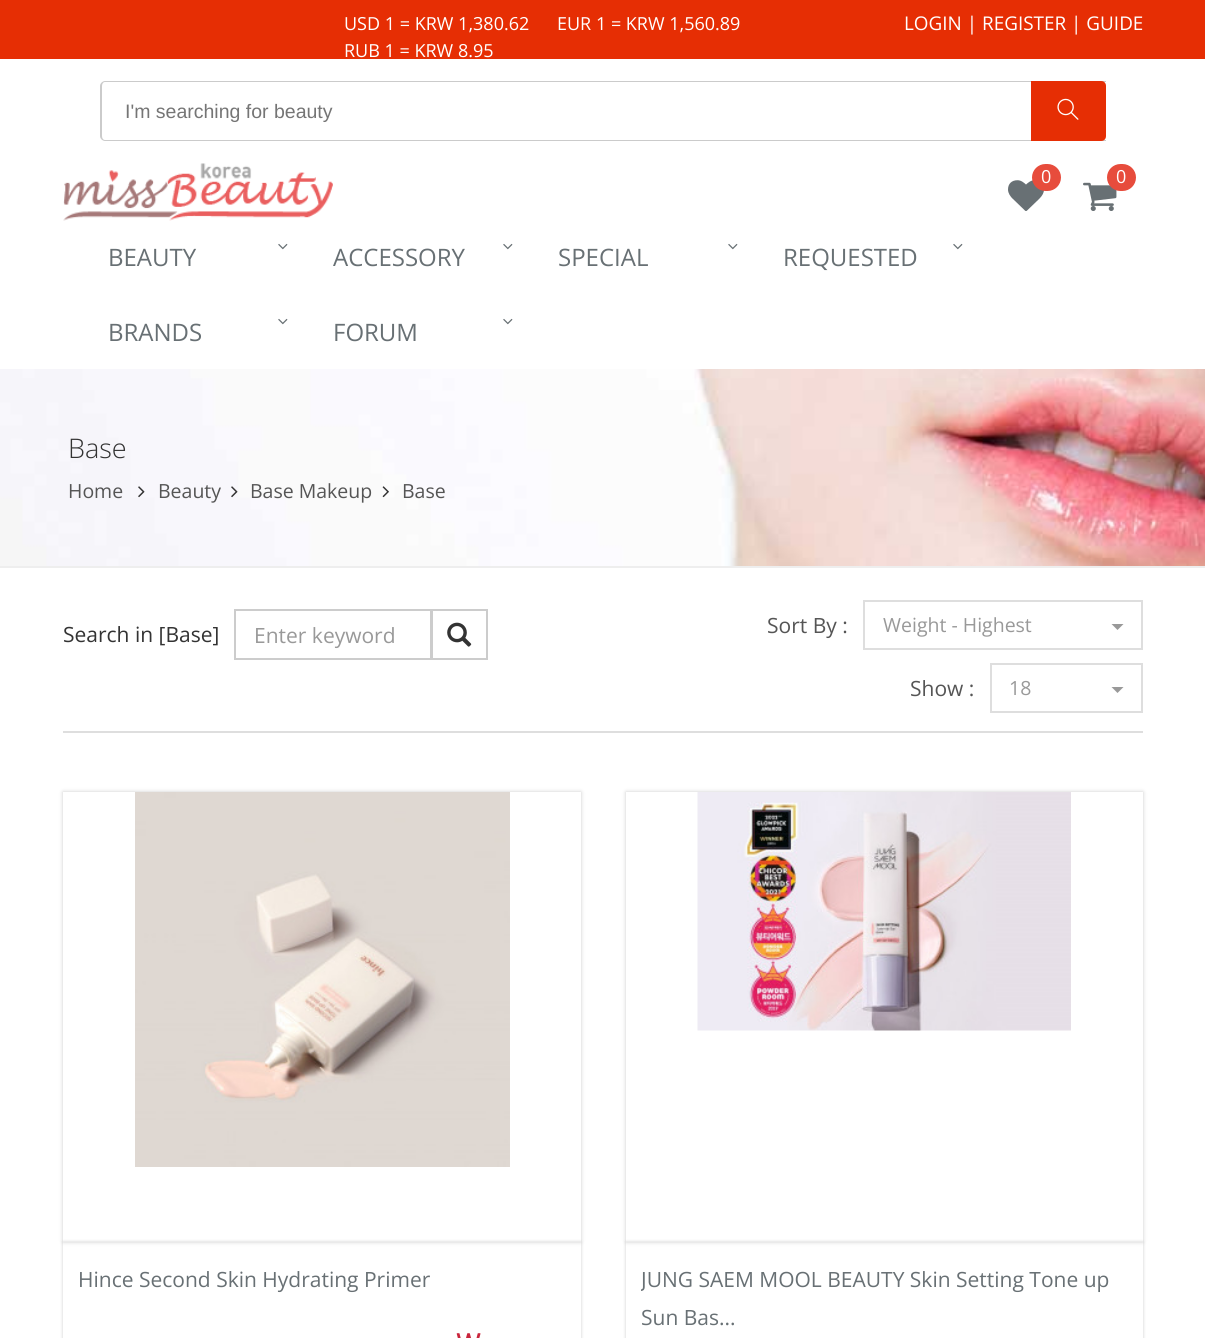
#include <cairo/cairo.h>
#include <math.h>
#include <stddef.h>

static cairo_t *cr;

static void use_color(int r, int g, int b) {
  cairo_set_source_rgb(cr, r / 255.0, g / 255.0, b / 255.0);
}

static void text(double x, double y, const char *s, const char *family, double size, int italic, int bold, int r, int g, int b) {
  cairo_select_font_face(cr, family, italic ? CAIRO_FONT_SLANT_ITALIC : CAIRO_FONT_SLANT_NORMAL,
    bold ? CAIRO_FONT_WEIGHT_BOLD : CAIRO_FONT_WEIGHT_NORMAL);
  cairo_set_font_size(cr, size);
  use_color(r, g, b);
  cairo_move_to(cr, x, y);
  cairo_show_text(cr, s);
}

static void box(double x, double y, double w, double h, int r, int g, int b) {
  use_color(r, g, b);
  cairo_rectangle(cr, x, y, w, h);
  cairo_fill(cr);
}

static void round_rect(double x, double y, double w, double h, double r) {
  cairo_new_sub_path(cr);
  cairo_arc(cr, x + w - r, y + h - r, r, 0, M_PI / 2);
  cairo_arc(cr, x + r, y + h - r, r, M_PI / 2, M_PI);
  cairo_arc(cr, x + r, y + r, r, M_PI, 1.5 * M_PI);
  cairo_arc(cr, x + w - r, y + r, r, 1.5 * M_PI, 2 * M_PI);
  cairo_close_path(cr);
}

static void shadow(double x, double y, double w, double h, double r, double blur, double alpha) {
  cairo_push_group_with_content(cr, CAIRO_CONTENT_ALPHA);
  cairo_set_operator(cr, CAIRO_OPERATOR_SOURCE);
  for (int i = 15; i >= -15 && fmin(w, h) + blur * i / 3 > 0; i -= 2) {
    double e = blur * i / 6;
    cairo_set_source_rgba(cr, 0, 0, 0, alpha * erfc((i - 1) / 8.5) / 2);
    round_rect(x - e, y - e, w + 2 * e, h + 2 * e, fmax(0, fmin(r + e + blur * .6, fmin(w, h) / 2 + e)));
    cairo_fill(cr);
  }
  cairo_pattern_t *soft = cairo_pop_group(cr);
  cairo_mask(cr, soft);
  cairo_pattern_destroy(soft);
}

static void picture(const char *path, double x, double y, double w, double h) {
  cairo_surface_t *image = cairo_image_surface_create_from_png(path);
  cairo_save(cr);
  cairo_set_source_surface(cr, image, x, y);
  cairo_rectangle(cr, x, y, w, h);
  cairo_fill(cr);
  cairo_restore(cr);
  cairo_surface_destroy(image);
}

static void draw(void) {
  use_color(255, 255, 255);
  cairo_paint(cr);
  box(0, 0, 1205, 59, 230, 46, 4);
  use_color(203, 203, 203);
  cairo_set_fill_rule(cr, CAIRO_FILL_RULE_EVEN_ODD);
  cairo_new_path(cr);
  cairo_move_to(cr, 105, 81);
  cairo_line_to(cr, 1106, 81);
  cairo_line_to(cr, 1106, 141);
  cairo_line_to(cr, 105, 141);
  cairo_curve_to(cr, 103, 141, 100, 139, 100, 136);
  cairo_line_to(cr, 100, 86);
  cairo_curve_to(cr, 100, 83, 103, 81, 105, 81);
  cairo_close_path(cr);
  cairo_move_to(cr, 105, 82);
  cairo_line_to(cr, 1106, 82);
  cairo_line_to(cr, 1106, 140);
  cairo_line_to(cr, 105, 140);
  cairo_curve_to(cr, 103, 140, 102, 138, 102, 136);
  cairo_line_to(cr, 102, 86);
  cairo_curve_to(cr, 102, 84, 103, 82, 105, 82);
  cairo_close_path(cr);
  cairo_fill(cr);
  use_color(230, 46, 4);
  cairo_new_path(cr);
  cairo_move_to(cr, 1031, 81);
  cairo_line_to(cr, 1101, 81);
  cairo_curve_to(cr, 1104, 81, 1106, 83, 1106, 86);
  cairo_line_to(cr, 1106, 136);
  cairo_curve_to(cr, 1106, 139, 1104, 141, 1101, 141);
  cairo_line_to(cr, 1031, 141);
  cairo_close_path(cr);
  cairo_fill(cr);
  picture("img_01.png", 1057, 98, 22, 22);
  picture("img_02.png", 63, 163, 270, 58);
  picture("img_03.png", 1008, 180, 36, 31);
  use_color(231, 76, 60);
  round_rect(1032, 164, 29, 27, 13.5);
  cairo_fill(cr);
  picture("img_04.png", 1083, 182, 34, 29);
  round_rect(1107, 164, 29, 27, 13.5);
  cairo_fill(cr);
  picture("img_05.png", 278, 243, 10, 7);
  picture("img_05.png", 503, 243, 10, 7);
  picture("img_05.png", 728, 243, 10, 7);
  picture("img_05.png", 953, 243, 10, 7);
  picture("img_05.png", 278, 318, 10, 7);
  picture("img_05.png", 503, 318, 10, 7);
  picture("img_06.png", 0, 369, 1205, 197);
  box(0, 566, 1205, 2, 238, 238, 238);
  picture("img_07.png", 138, 486, 7, 12);
  picture("img_08.png", 231, 486, 7, 12);
  picture("img_09.png", 382, 486, 7, 12);
  cairo_rectangle(cr, 432, 610, 55, 49);
  use_color(204, 204, 204);
  cairo_stroke(cr);
  cairo_rectangle(cr, 235, 610, 196, 49);
  cairo_stroke(cr);
  picture("img_10.png", 447, 622, 25, 25);
  cairo_rectangle(cr, 864, 601, 278, 48);
  use_color(222, 222, 222);
  cairo_stroke(cr);
  use_color(153, 153, 153);
  cairo_set_fill_rule(cr, CAIRO_FILL_RULE_WINDING);
  cairo_new_path(cr);
  cairo_move_to(cr, 1111.5, 624);
  cairo_line_to(cr, 1123.5, 624);
  cairo_line_to(cr, 1117.5, 630);
  cairo_close_path(cr);
  cairo_fill(cr);
  cairo_rectangle(cr, 991, 664, 151, 48);
  use_color(222, 222, 222);
  cairo_stroke(cr);
  use_color(153, 153, 153);
  cairo_new_path(cr);
  cairo_move_to(cr, 1111.5, 687);
  cairo_line_to(cr, 1123.5, 687);
  cairo_line_to(cr, 1117.5, 693);
  cairo_close_path(cr);
  cairo_fill(cr);
  box(63, 731, 1080, 2, 222, 222, 222);
  cairo_save(cr);
  cairo_set_fill_rule(cr, CAIRO_FILL_RULE_EVEN_ODD);
  cairo_new_path(cr);
  cairo_move_to(cr, 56, 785);
  cairo_line_to(cr, 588, 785);
  cairo_line_to(cr, 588, 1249);
  cairo_line_to(cr, 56, 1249);
  cairo_close_path(cr);
  cairo_move_to(cr, 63, 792);
  cairo_line_to(cr, 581, 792);
  cairo_line_to(cr, 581, 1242);
  cairo_line_to(cr, 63, 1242);
  cairo_close_path(cr);
  cairo_clip(cr);
  use_color(204, 204, 204);
  shadow(63, 792, 518, 450, 0, 2, 1);
  cairo_restore(cr);
  picture("img_11.png", 135, 792, 375, 375);
  cairo_save(cr);
  cairo_set_fill_rule(cr, CAIRO_FILL_RULE_EVEN_ODD);
  cairo_new_path(cr);
  cairo_move_to(cr, 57, 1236);
  cairo_line_to(cr, 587, 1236);
  cairo_line_to(cr, 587, 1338);
  cairo_line_to(cr, 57, 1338);
  cairo_close_path(cr);
  cairo_move_to(cr, 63, 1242);
  cairo_line_to(cr, 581, 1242);
  cairo_line_to(cr, 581, 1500);
  cairo_line_to(cr, 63, 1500);
  cairo_close_path(cr);
  cairo_clip(cr);
  use_color(204, 204, 204);
  shadow(63, 1242, 518, 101, 0, 1.5, 1);
  cairo_restore(cr);
  picture("img_12.png", 456, 1333, 25, 5);
  cairo_save(cr);
  cairo_set_fill_rule(cr, CAIRO_FILL_RULE_EVEN_ODD);
  cairo_new_path(cr);
  cairo_move_to(cr, 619, 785);
  cairo_line_to(cr, 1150, 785);
  cairo_line_to(cr, 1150, 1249);
  cairo_line_to(cr, 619, 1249);
  cairo_close_path(cr);
  cairo_move_to(cr, 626, 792);
  cairo_line_to(cr, 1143, 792);
  cairo_line_to(cr, 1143, 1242);
  cairo_line_to(cr, 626, 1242);
  cairo_close_path(cr);
  cairo_clip(cr);
  use_color(204, 204, 204);
  shadow(626, 792, 517, 450, 0, 2, 1);
  cairo_restore(cr);
  picture("img_13.png", 697, 792, 374, 239);
  cairo_save(cr);
  cairo_set_fill_rule(cr, CAIRO_FILL_RULE_EVEN_ODD);
  cairo_new_path(cr);
  cairo_move_to(cr, 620, 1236);
  cairo_line_to(cr, 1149, 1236);
  cairo_line_to(cr, 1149, 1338);
  cairo_line_to(cr, 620, 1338);
  cairo_close_path(cr);
  cairo_move_to(cr, 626, 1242);
  cairo_line_to(cr, 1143, 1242);
  cairo_line_to(cr, 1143, 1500);
  cairo_line_to(cr, 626, 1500);
  cairo_close_path(cr);
  cairo_clip(cr);
  use_color(204, 204, 204);
  shadow(626, 1242, 517, 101, 0, 1.5, 1);
  cairo_restore(cr);
  text(344, 30, "USD 1 = KRW 1,380.62", "Open Sans", 18, 0, 0, 255, 255, 255);
  text(557, 30, "EUR 1 = KRW 1,560.89", "Open Sans", 18, 0, 0, 255, 255, 255);
  text(344, 57, "RUB 1 = KRW 8.95", "Open Sans", 18, 0, 0, 255, 255, 255);
  text(904, 30, "LOGIN | REGISTER | GUIDE", "Open Sans", 18.9, 0, 0, 255, 255, 255);
  text(125, 118, "I'm searching for beauty", "Liberation Sans", 19.5, 0, 0, 117, 117, 117);
  text(1041, 183, "0", "Open Sans", 18, 0, 0, 255, 255, 255);
  text(1116, 183, "0", "Open Sans", 18, 0, 0, 255, 255, 255);
  text(108, 266, "BEAUTY", "Open Sans", 24, 0, 0, 104, 112, 116);
  text(333, 266, "ACCESSORY", "Open Sans", 24, 0, 0, 104, 112, 116);
  text(558, 266, "SPECIAL", "Open Sans", 24, 0, 0, 104, 112, 116);
  text(783, 266, "REQUESTED", "Open Sans", 24, 0, 0, 104, 112, 116);
  text(108, 341, "BRANDS", "Open Sans", 24, 0, 0, 104, 112, 116);
  text(333, 341, "FORUM", "Open Sans", 24, 0, 0, 104, 112, 116);
  text(68, 458, "Base", "Open Sans Light", 27, 0, 0, 51, 51, 51);
  text(68, 498, "Home", "Open Sans", 19.5, 0, 0, 85, 85, 85);
  text(158, 498, "Beauty", "Open Sans", 19.5, 0, 0, 85, 85, 85);
  text(250, 498, "Base Makeup", "Open Sans", 19.5, 0, 0, 85, 85, 85);
  text(402, 498, "Base", "Open Sans", 19.5, 0, 0, 85, 85, 85);
  text(63, 642, "Search in [Base]", "Open Sans", 21, 0, 0, 51, 51, 51);
  text(254, 643, "Enter keyword", "Open Sans", 21, 0, 0, 153, 153, 153);
  text(767, 633, "Sort By :", "Open Sans", 21, 0, 0, 85, 85, 85);
  text(883, 632, "Weight - Highest", "Open Sans", 19.5, 0, 0, 153, 153, 153);
  text(910, 696, "Show :", "Open Sans", 21, 0, 0, 85, 85, 85);
  text(1009, 695, "18", "Open Sans", 19.5, 0, 0, 153, 153, 153);
  text(78, 1287, "Hince Second Skin Hydrating Primer", "Open Sans", 21, 0, 0, 104, 112, 116);
  cairo_save(cr);
  cairo_rectangle(cr, 641, 1257, 487, 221);
  cairo_clip(cr);
  text(641, 1287, "JUNG SAEM MOOL BEAUTY Skin Setting Tone up", "Open Sans", 21, 0, 0, 104, 112, 116);
  cairo_restore(cr);
  text(641, 1325, "Sun Bas...", "Open Sans", 21, 0, 0, 104, 112, 116);
}

int main(void) {
  cairo_surface_t *surface = cairo_image_surface_create(CAIRO_FORMAT_RGB24, 1205, 1338);
  cr = cairo_create(surface);
  cairo_font_options_t *options = cairo_font_options_create();
  cairo_font_options_set_hint_metrics(options, CAIRO_HINT_METRICS_OFF);
  cairo_font_options_set_hint_style(options, CAIRO_HINT_STYLE_NONE);
  cairo_set_font_options(cr, options);
  cairo_set_miter_limit(cr, 4);
  draw();
  cairo_surface_write_to_png(surface, "out.png");
  cairo_font_options_destroy(options);
  cairo_destroy(cr);
  cairo_surface_destroy(surface);
  return 0;
}
